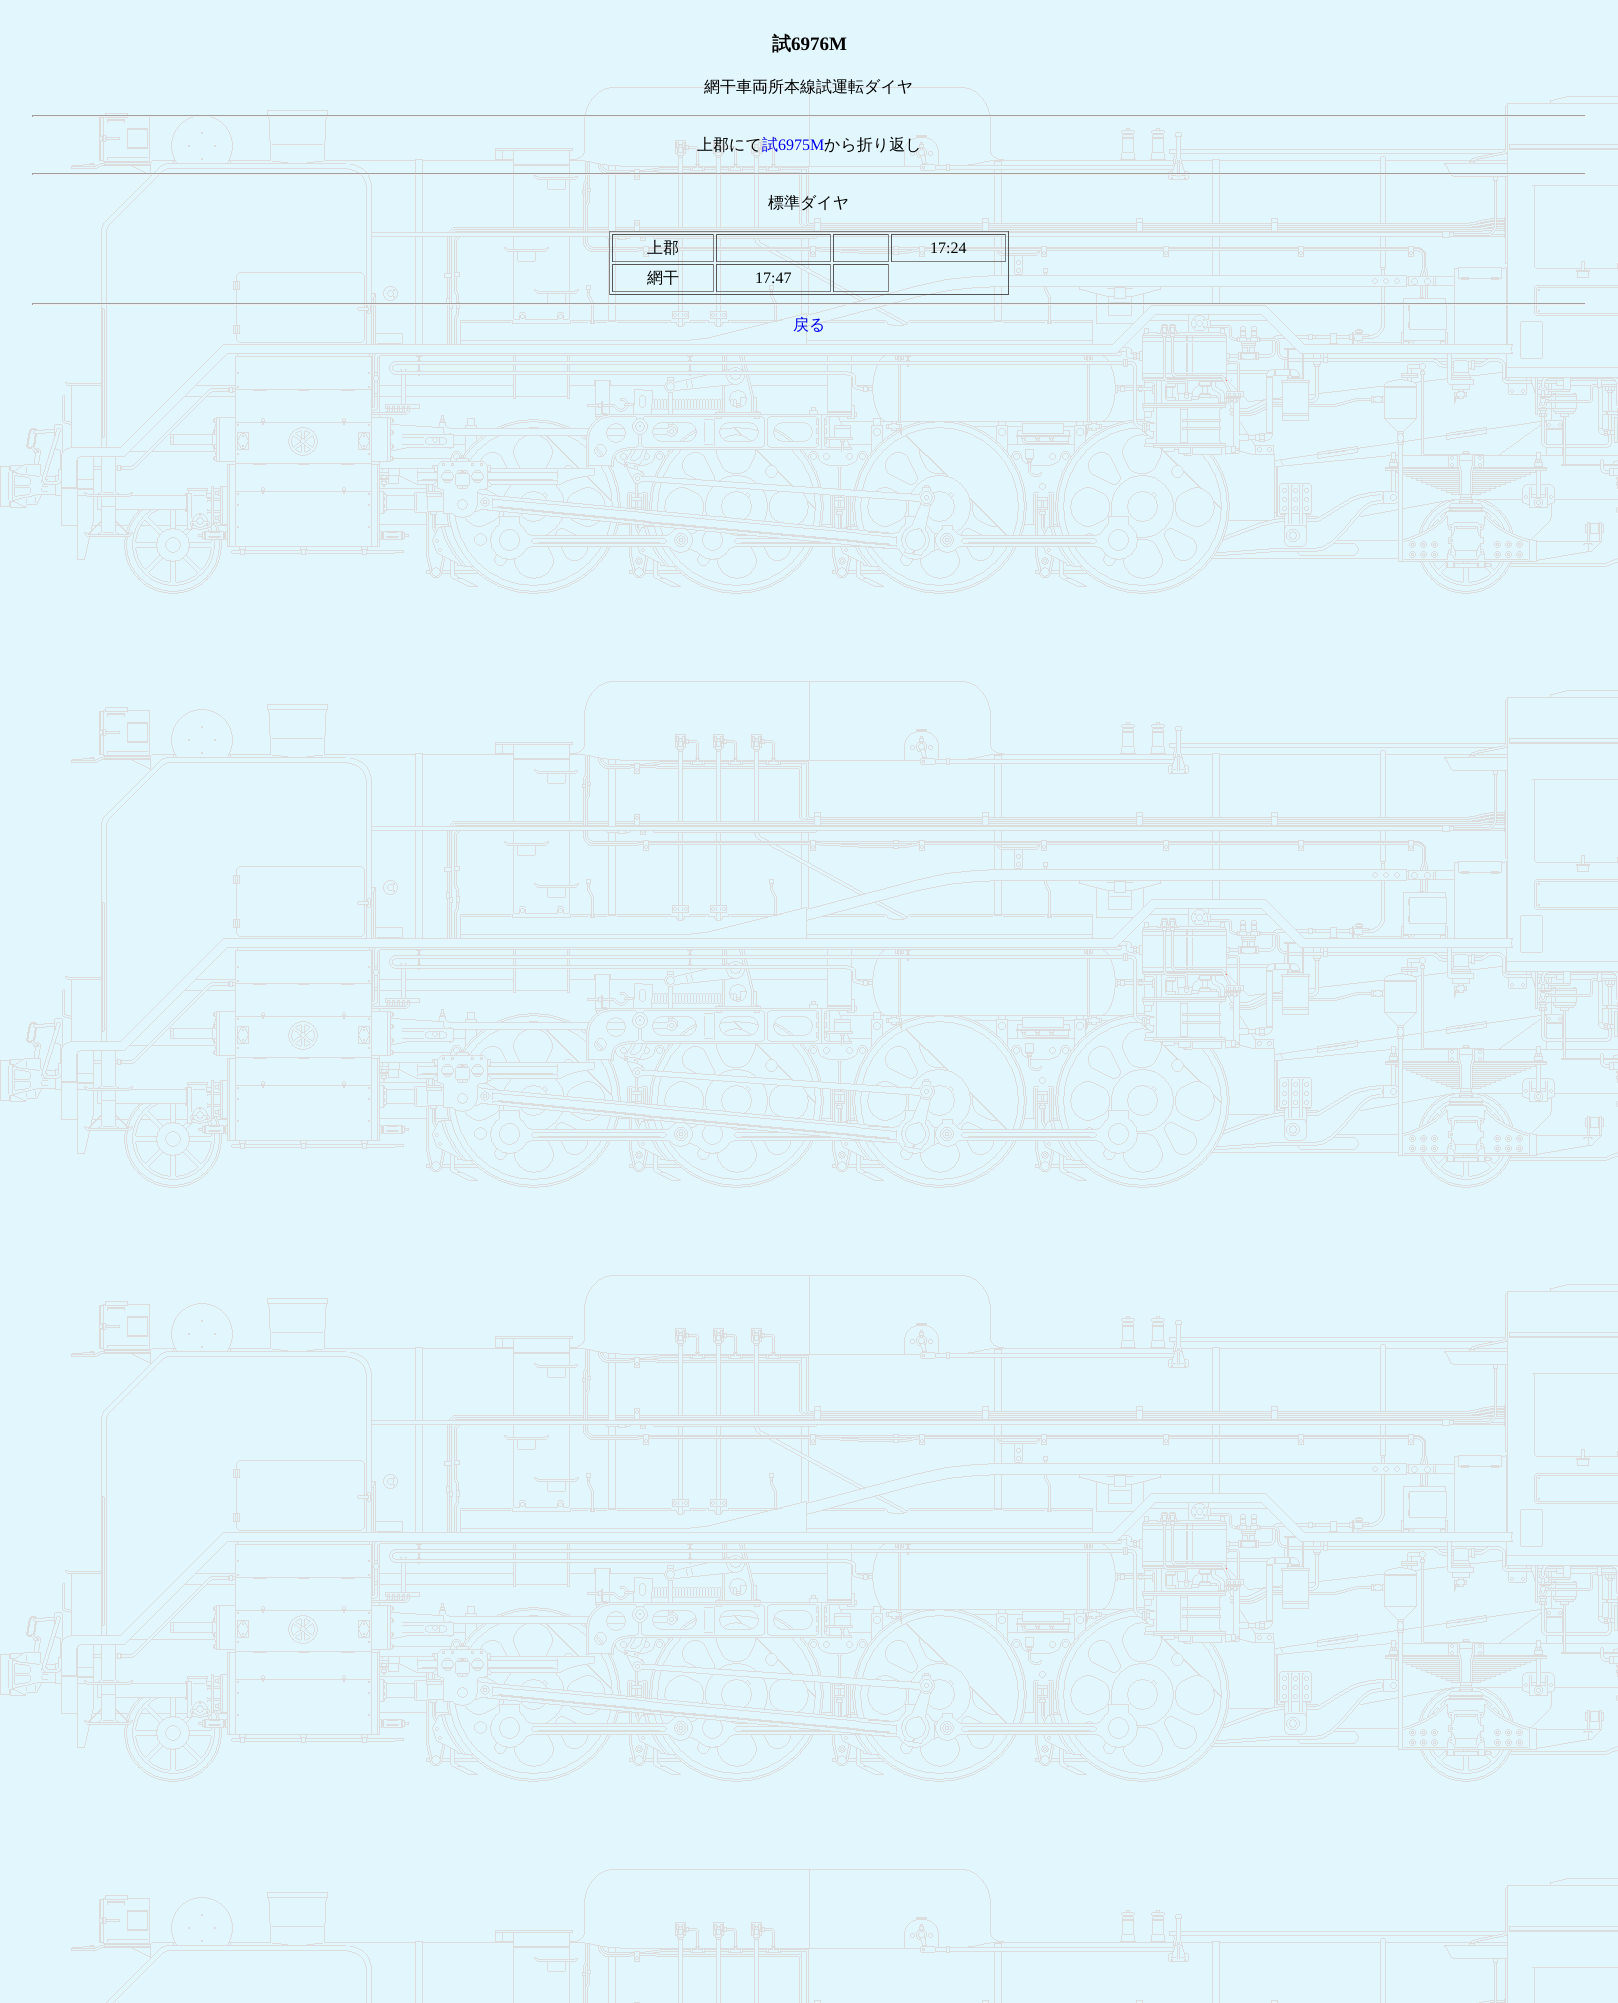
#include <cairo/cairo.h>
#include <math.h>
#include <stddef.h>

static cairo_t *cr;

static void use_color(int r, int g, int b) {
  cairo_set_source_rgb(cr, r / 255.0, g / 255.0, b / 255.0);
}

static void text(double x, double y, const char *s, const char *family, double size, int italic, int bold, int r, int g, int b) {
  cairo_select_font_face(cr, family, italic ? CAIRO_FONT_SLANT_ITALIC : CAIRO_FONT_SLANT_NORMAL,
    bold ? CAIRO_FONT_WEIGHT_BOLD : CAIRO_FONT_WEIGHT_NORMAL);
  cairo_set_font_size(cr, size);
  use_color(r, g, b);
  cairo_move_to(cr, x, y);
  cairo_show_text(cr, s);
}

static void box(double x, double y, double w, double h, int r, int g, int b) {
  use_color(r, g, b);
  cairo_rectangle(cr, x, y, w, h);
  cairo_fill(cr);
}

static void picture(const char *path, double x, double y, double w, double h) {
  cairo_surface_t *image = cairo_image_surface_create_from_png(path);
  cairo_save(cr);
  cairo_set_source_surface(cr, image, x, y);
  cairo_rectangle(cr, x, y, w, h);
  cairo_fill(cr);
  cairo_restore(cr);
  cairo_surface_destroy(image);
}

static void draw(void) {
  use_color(226, 247, 253);
  cairo_paint(cr);
  picture("img_01.png", 0, 87, 1618, 1916);
  box(32, 115, 1554, 1, 159, 159, 159);
  box(1585, 115, 1, 2, 238, 238, 238);
  box(32, 116, 1554, 1, 238, 238, 238);
  box(32, 115, 1, 2, 159, 159, 159);
  box(32, 173, 1554, 1, 159, 159, 159);
  box(1585, 173, 1, 2, 238, 238, 238);
  box(32, 174, 1554, 1, 238, 238, 238);
  box(32, 173, 1, 2, 159, 159, 159);
  box(609, 231, 400, 1, 128, 128, 128);
  box(1008, 231, 1, 64, 85, 85, 85);
  box(609, 294, 400, 1, 85, 85, 85);
  box(609, 231, 1, 64, 128, 128, 128);
  box(612, 234, 102, 1, 85, 85, 85);
  box(713, 234, 1, 28, 128, 128, 128);
  box(612, 261, 102, 1, 128, 128, 128);
  box(612, 234, 1, 28, 85, 85, 85);
  box(716, 234, 115, 1, 85, 85, 85);
  box(830, 234, 1, 28, 128, 128, 128);
  box(716, 261, 115, 1, 128, 128, 128);
  box(716, 234, 1, 28, 85, 85, 85);
  box(833, 234, 56, 1, 85, 85, 85);
  box(888, 234, 1, 28, 128, 128, 128);
  box(833, 261, 56, 1, 128, 128, 128);
  box(833, 234, 1, 28, 85, 85, 85);
  box(891, 234, 115, 1, 85, 85, 85);
  box(1005, 234, 1, 28, 128, 128, 128);
  box(891, 261, 115, 1, 128, 128, 128);
  box(891, 234, 1, 28, 85, 85, 85);
  box(612, 264, 102, 1, 85, 85, 85);
  box(713, 264, 1, 28, 128, 128, 128);
  box(612, 291, 102, 1, 128, 128, 128);
  box(612, 264, 1, 28, 85, 85, 85);
  box(716, 264, 115, 1, 85, 85, 85);
  box(830, 264, 1, 28, 128, 128, 128);
  box(716, 291, 115, 1, 128, 128, 128);
  box(716, 264, 1, 28, 85, 85, 85);
  box(833, 264, 56, 1, 85, 85, 85);
  box(888, 264, 1, 28, 128, 128, 128);
  box(833, 291, 56, 1, 128, 128, 128);
  box(833, 264, 1, 28, 85, 85, 85);
  box(32, 303, 1554, 1, 159, 159, 159);
  box(1585, 303, 1, 2, 238, 238, 238);
  box(32, 304, 1554, 1, 238, 238, 238);
  box(32, 303, 1, 2, 159, 159, 159);
  text(772, 50, "試", "WenQuanYi Zen Hei", 19, 0, 1, 0, 0, 0);
  text(791, 50, "6976M", "Liberation Serif", 19, 0, 1, 0, 0, 0);
  text(704, 92, "網干車両所本線試運転ダイヤ", "WenQuanYi Zen Hei Medium", 16, 0, 0, 0, 0, 0);
  text(697, 150, "上郡にて", "WenQuanYi Zen Hei Medium", 16, 0, 0, 0, 0, 0);
  text(762, 150, "試", "WenQuanYi Zen Hei Medium", 16, 0, 0, 0, 0, 238);
  text(778, 150, "6975M", "Liberation Serif", 16, 0, 0, 0, 0, 238);
  text(824, 150, "から折り返し", "WenQuanYi Zen Hei Medium", 16, 0, 0, 0, 0, 0);
  text(768, 208, "標準ダイヤ", "WenQuanYi Zen Hei Medium", 16, 0, 0, 0, 0, 0);
  text(647, 253, "上郡", "WenQuanYi Zen Hei Medium", 16, 0, 0, 0, 0, 0);
  text(930, 253, "17:24", "Liberation Serif", 16, 0, 0, 0, 0, 0);
  text(647, 283, "網干", "WenQuanYi Zen Hei Medium", 16, 0, 0, 0, 0, 0);
  text(755, 283, "17:47", "Liberation Serif", 16, 0, 0, 0, 0, 0);
  text(793, 330, "戻る", "WenQuanYi Zen Hei Medium", 16, 0, 0, 0, 0, 238);
}

int main(void) {
  cairo_surface_t *surface = cairo_image_surface_create(CAIRO_FORMAT_RGB24, 1618, 2003);
  cr = cairo_create(surface);
  cairo_font_options_t *options = cairo_font_options_create();
  cairo_font_options_set_hint_metrics(options, CAIRO_HINT_METRICS_OFF);
  cairo_font_options_set_hint_style(options, CAIRO_HINT_STYLE_NONE);
  cairo_set_font_options(cr, options);
  cairo_set_miter_limit(cr, 4);
  draw();
  cairo_surface_write_to_png(surface, "out.png");
  cairo_font_options_destroy(options);
  cairo_destroy(cr);
  cairo_surface_destroy(surface);
  return 0;
}
